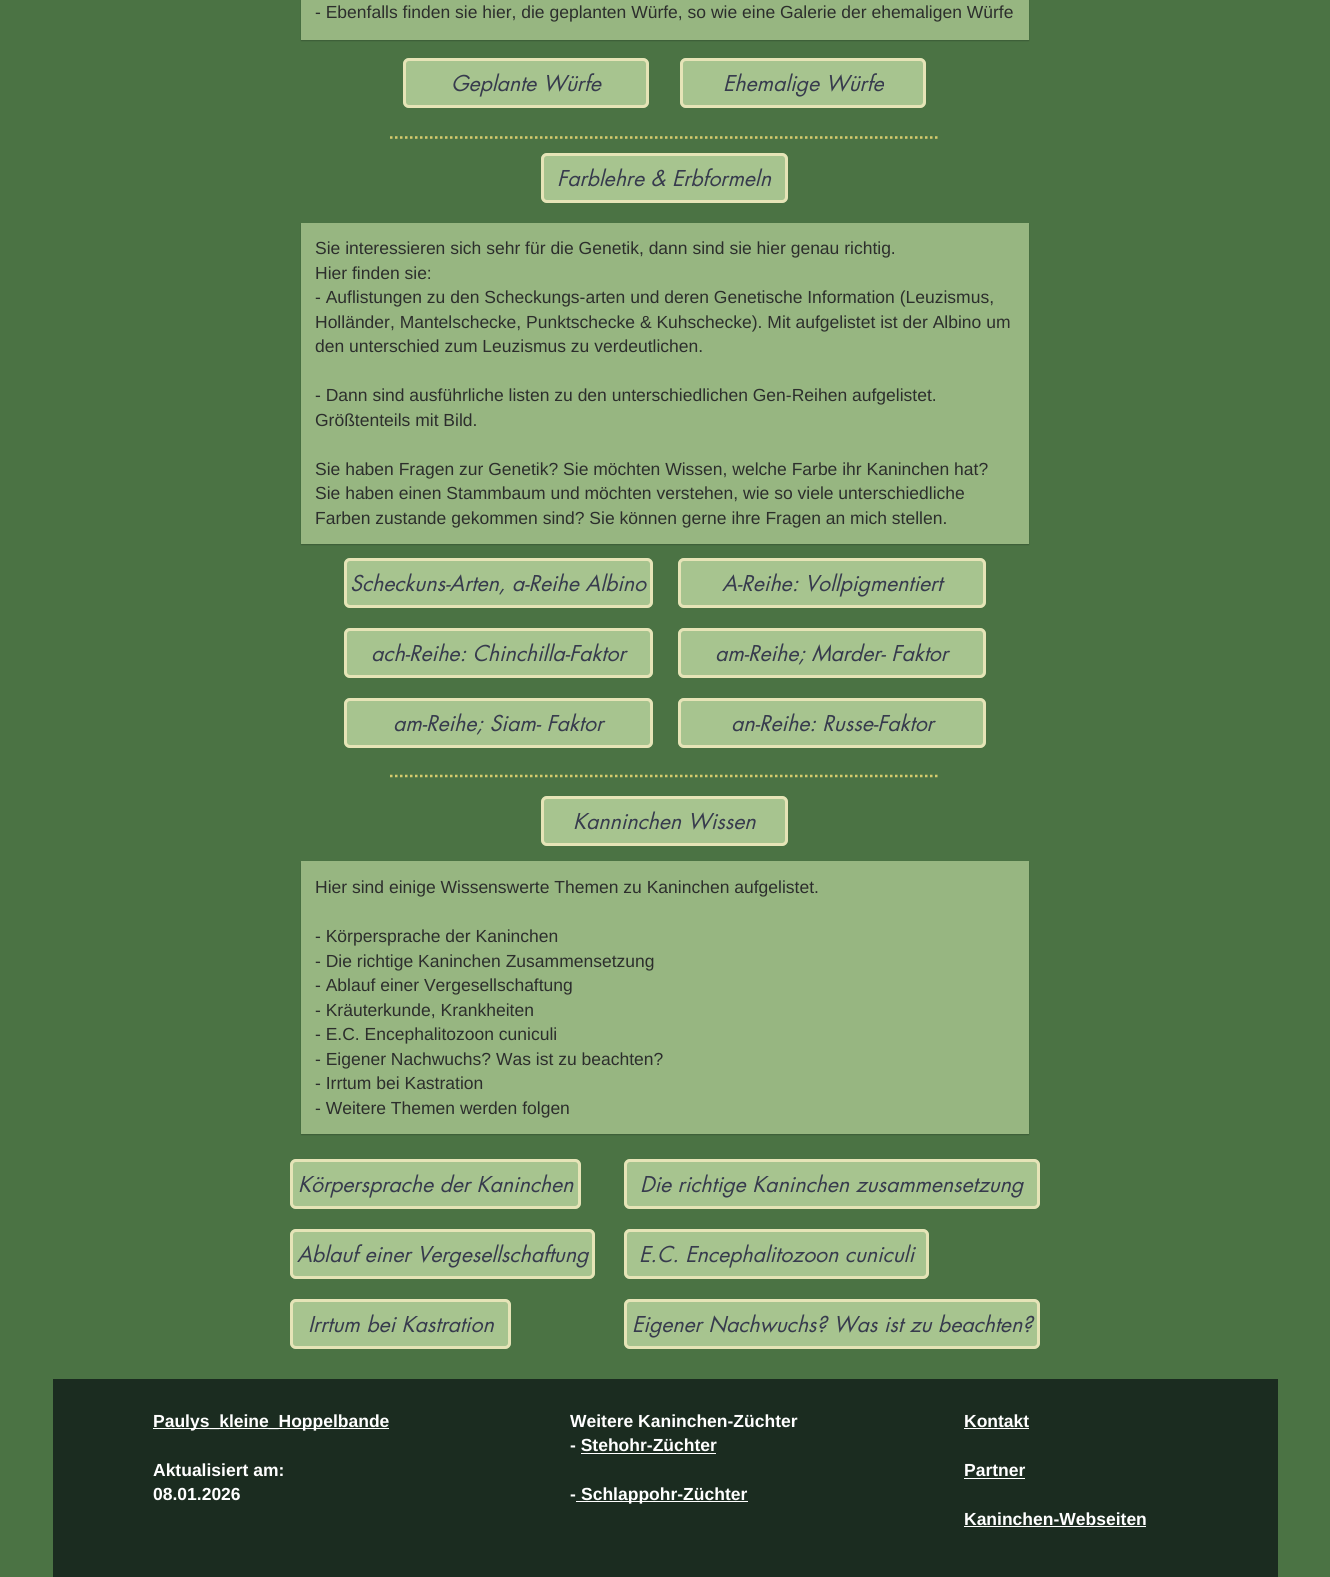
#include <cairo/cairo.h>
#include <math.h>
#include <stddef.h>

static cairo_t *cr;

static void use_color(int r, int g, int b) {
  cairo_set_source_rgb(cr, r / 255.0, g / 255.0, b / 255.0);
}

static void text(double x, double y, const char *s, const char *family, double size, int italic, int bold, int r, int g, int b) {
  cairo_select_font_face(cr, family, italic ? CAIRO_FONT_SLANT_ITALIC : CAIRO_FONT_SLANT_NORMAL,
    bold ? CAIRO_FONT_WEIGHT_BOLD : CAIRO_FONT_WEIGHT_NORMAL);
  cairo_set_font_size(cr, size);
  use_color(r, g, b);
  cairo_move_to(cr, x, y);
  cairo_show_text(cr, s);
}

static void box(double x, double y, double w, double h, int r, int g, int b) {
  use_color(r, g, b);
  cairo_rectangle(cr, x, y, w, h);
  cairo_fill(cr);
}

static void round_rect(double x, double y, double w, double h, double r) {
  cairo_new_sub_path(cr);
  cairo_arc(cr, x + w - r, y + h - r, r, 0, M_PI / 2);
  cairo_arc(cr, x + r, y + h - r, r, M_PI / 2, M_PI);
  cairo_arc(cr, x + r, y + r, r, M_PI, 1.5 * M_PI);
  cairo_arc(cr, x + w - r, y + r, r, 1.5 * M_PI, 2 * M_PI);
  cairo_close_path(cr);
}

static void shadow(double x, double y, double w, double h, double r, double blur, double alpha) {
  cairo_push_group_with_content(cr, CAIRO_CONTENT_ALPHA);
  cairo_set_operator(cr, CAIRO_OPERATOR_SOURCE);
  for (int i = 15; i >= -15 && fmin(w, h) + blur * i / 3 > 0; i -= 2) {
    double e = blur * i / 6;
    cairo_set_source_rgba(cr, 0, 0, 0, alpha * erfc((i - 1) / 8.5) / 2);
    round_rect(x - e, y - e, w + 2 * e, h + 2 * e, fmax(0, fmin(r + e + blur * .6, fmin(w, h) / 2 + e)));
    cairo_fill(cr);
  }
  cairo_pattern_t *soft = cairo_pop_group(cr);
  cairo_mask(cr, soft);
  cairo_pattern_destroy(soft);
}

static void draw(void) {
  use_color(75, 115, 68);
  cairo_paint(cr);
  cairo_save(cr);
  cairo_set_fill_rule(cr, CAIRO_FILL_RULE_EVEN_ODD);
  cairo_new_path(cr);
  cairo_move_to(cr, 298, 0);
  cairo_line_to(cr, 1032, 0);
  cairo_line_to(cr, 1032, 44);
  cairo_line_to(cr, 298, 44);
  cairo_close_path(cr);
  cairo_move_to(cr, 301, -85);
  cairo_line_to(cr, 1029, -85);
  cairo_line_to(cr, 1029, 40);
  cairo_line_to(cr, 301, 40);
  cairo_close_path(cr);
  cairo_clip(cr);
  use_color(0, 0, 0);
  shadow(301, -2, 728, 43, 0, 0.5, 0.2);
  cairo_restore(cr);
  cairo_set_source_rgba(cr, 0.655, 0.769, 0.561, 0.82);
  cairo_rectangle(cr, 301, 0, 728, 40);
  cairo_fill(cr);
  use_color(167, 196, 143);
  round_rect(403, 58, 246, 50, 6);
  cairo_fill(cr);
  round_rect(404.5, 59.5, 243, 47, 4.5);
  cairo_set_source_rgba(cr, 0.949, 0.918, 0.749, 0.84);
  cairo_set_line_width(cr, 3);
  cairo_stroke(cr);
  use_color(167, 196, 143);
  round_rect(680, 58, 246, 50, 6);
  cairo_fill(cr);
  round_rect(681.5, 59.5, 243, 47, 4.5);
  cairo_set_source_rgba(cr, 0.949, 0.918, 0.749, 0.84);
  cairo_stroke(cr);
  cairo_new_path(cr);
  cairo_move_to(cr, 390, 137.5);
  cairo_line_to(cr, 940, 137.5);
  use_color(214, 204, 110);
  cairo_set_line_width(cr, 2.5);
  cairo_set_dash(cr, (double[]){2.5, 2.5}, 2, 0);
  cairo_stroke(cr);
  use_color(167, 196, 143);
  round_rect(541, 153, 247, 50, 6);
  cairo_fill(cr);
  round_rect(542.5, 154.5, 244, 47, 4.5);
  cairo_set_source_rgba(cr, 0.949, 0.918, 0.749, 0.84);
  cairo_set_line_width(cr, 3);
  cairo_set_dash(cr, NULL, 0, 0);
  cairo_stroke(cr);
  cairo_save(cr);
  cairo_set_fill_rule(cr, CAIRO_FILL_RULE_EVEN_ODD);
  cairo_new_path(cr);
  cairo_move_to(cr, 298, 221);
  cairo_line_to(cr, 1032, 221);
  cairo_line_to(cr, 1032, 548);
  cairo_line_to(cr, 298, 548);
  cairo_close_path(cr);
  cairo_move_to(cr, 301, 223);
  cairo_line_to(cr, 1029, 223);
  cairo_line_to(cr, 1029, 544);
  cairo_line_to(cr, 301, 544);
  cairo_close_path(cr);
  cairo_clip(cr);
  use_color(0, 0, 0);
  shadow(301, 224, 728, 321, 0, 0.5, 0.2);
  cairo_restore(cr);
  cairo_set_source_rgba(cr, 0.655, 0.769, 0.561, 0.82);
  cairo_rectangle(cr, 301, 223, 728, 321);
  cairo_fill(cr);
  use_color(167, 196, 143);
  round_rect(344, 558, 309, 50, 6);
  cairo_fill(cr);
  round_rect(345.5, 559.5, 306, 47, 4.5);
  cairo_set_source_rgba(cr, 0.949, 0.918, 0.749, 0.84);
  cairo_stroke(cr);
  use_color(167, 196, 143);
  round_rect(678, 558, 308, 50, 6);
  cairo_fill(cr);
  round_rect(679.5, 559.5, 305, 47, 4.5);
  cairo_set_source_rgba(cr, 0.949, 0.918, 0.749, 0.84);
  cairo_stroke(cr);
  use_color(167, 196, 143);
  round_rect(344, 628, 309, 50, 6);
  cairo_fill(cr);
  round_rect(345.5, 629.5, 306, 47, 4.5);
  cairo_set_source_rgba(cr, 0.949, 0.918, 0.749, 0.84);
  cairo_stroke(cr);
  use_color(167, 196, 143);
  round_rect(678, 628, 308, 50, 6);
  cairo_fill(cr);
  round_rect(679.5, 629.5, 305, 47, 4.5);
  cairo_set_source_rgba(cr, 0.949, 0.918, 0.749, 0.84);
  cairo_stroke(cr);
  use_color(167, 196, 143);
  round_rect(344, 698, 309, 50, 6);
  cairo_fill(cr);
  round_rect(345.5, 699.5, 306, 47, 4.5);
  cairo_set_source_rgba(cr, 0.949, 0.918, 0.749, 0.84);
  cairo_stroke(cr);
  use_color(167, 196, 143);
  round_rect(678, 698, 308, 50, 6);
  cairo_fill(cr);
  round_rect(679.5, 699.5, 305, 47, 4.5);
  cairo_set_source_rgba(cr, 0.949, 0.918, 0.749, 0.84);
  cairo_stroke(cr);
  cairo_new_path(cr);
  cairo_move_to(cr, 390, 776);
  cairo_line_to(cr, 940, 776);
  use_color(214, 204, 110);
  cairo_set_line_width(cr, 2.5);
  cairo_set_dash(cr, (double[]){2.5, 2.5}, 2, 0);
  cairo_stroke(cr);
  use_color(167, 196, 143);
  round_rect(541, 796, 247, 50, 6);
  cairo_fill(cr);
  round_rect(542.5, 797.5, 244, 47, 4.5);
  cairo_set_source_rgba(cr, 0.949, 0.918, 0.749, 0.84);
  cairo_set_line_width(cr, 3);
  cairo_set_dash(cr, NULL, 0, 0);
  cairo_stroke(cr);
  cairo_save(cr);
  cairo_set_fill_rule(cr, CAIRO_FILL_RULE_EVEN_ODD);
  cairo_new_path(cr);
  cairo_move_to(cr, 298, 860);
  cairo_line_to(cr, 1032, 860);
  cairo_line_to(cr, 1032, 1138);
  cairo_line_to(cr, 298, 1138);
  cairo_close_path(cr);
  cairo_move_to(cr, 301, 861);
  cairo_line_to(cr, 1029, 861);
  cairo_line_to(cr, 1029, 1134);
  cairo_line_to(cr, 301, 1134);
  cairo_close_path(cr);
  cairo_clip(cr);
  use_color(0, 0, 0);
  shadow(301, 863, 728, 272, 0, 0.5, 0.2);
  cairo_restore(cr);
  cairo_set_source_rgba(cr, 0.655, 0.769, 0.561, 0.82);
  cairo_rectangle(cr, 301, 861, 728, 273);
  cairo_fill(cr);
  use_color(167, 196, 143);
  round_rect(290, 1159, 291, 50, 6);
  cairo_fill(cr);
  round_rect(291.5, 1160.5, 288, 47, 4.5);
  cairo_set_source_rgba(cr, 0.949, 0.918, 0.749, 0.84);
  cairo_stroke(cr);
  use_color(167, 196, 143);
  round_rect(624, 1159, 416, 50, 6);
  cairo_fill(cr);
  round_rect(625.5, 1160.5, 413, 47, 4.5);
  cairo_set_source_rgba(cr, 0.949, 0.918, 0.749, 0.84);
  cairo_stroke(cr);
  use_color(167, 196, 143);
  round_rect(290, 1229, 305, 50, 6);
  cairo_fill(cr);
  round_rect(291.5, 1230.5, 302, 47, 4.5);
  cairo_set_source_rgba(cr, 0.949, 0.918, 0.749, 0.84);
  cairo_stroke(cr);
  use_color(167, 196, 143);
  round_rect(624, 1229, 305, 50, 6);
  cairo_fill(cr);
  round_rect(625.5, 1230.5, 302, 47, 4.5);
  cairo_set_source_rgba(cr, 0.949, 0.918, 0.749, 0.84);
  cairo_stroke(cr);
  use_color(167, 196, 143);
  round_rect(290, 1299, 221, 50, 6);
  cairo_fill(cr);
  round_rect(291.5, 1300.5, 218, 47, 4.5);
  cairo_set_source_rgba(cr, 0.949, 0.918, 0.749, 0.84);
  cairo_stroke(cr);
  use_color(167, 196, 143);
  round_rect(624, 1299, 416, 50, 6);
  cairo_fill(cr);
  round_rect(625.5, 1300.5, 413, 47, 4.5);
  cairo_set_source_rgba(cr, 0.949, 0.918, 0.749, 0.84);
  cairo_stroke(cr);
  box(53, 1379, 1225, 198, 27, 44, 32);
  box(153, 1428, 236, 1, 255, 255, 255);
  box(581, 1453, 135, 1, 255, 255, 255);
  box(576, 1501, 172, 1, 255, 255, 255);
  box(964, 1428, 65, 1, 255, 255, 255);
  box(964, 1478, 61, 1, 255, 255, 255);
  box(964, 1526, 182, 1, 255, 255, 255);
  text(315, 18, "- Ebenfalls finden sie hier, die geplanten Würfe, so wie eine Galerie der ehemaligen Würfe", "Liberation Sans", 17.5, 0, 0, 44, 46, 44);
  text(451, 91, "Geplante Würfe", "futura", 21.25, 1, 0, 55, 59, 77);
  text(723, 91, "Ehemalige Würfe", "futura", 21.25, 1, 0, 55, 59, 77);
  text(557, 186, "Farblehre & Erbformeln", "futura", 21.25, 1, 0, 55, 59, 77);
  text(315, 254, "Sie interessieren sich sehr für die Genetik, dann sind sie hier genau richtig.", "Liberation Sans", 17.5, 0, 0, 44, 46, 44);
  text(315, 279, "Hier finden sie:", "Liberation Sans", 17.5, 0, 0, 44, 46, 44);
  text(315, 303, "- Auflistungen zu den Scheckungs-arten und deren Genetische Information (Leuzismus,", "Liberation Sans", 17.5, 0, 0, 44, 46, 44);
  text(315, 328, "Holländer, Mantelschecke, Punktschecke & Kuhschecke). Mit aufgelistet ist der Albino um", "Liberation Sans", 17.5, 0, 0, 44, 46, 44);
  text(315, 352, "den unterschied zum Leuzismus zu verdeutlichen.", "Liberation Sans", 17.5, 0, 0, 44, 46, 44);
  text(315, 401, "- Dann sind ausführliche listen zu den unterschiedlichen Gen-Reihen aufgelistet.", "Liberation Sans", 17.5, 0, 0, 44, 46, 44);
  text(315, 426, "Größtenteils mit Bild.", "Liberation Sans", 17.5, 0, 0, 44, 46, 44);
  text(315, 475, "Sie haben Fragen zur Genetik? Sie möchten Wissen, welche Farbe ihr Kaninchen hat?", "Liberation Sans", 17.5, 0, 0, 44, 46, 44);
  text(315, 499, "Sie haben einen Stammbaum und möchten verstehen, wie so viele unterschiedliche", "Liberation Sans", 17.5, 0, 0, 44, 46, 44);
  text(315, 524, "Farben zustande gekommen sind? Sie können gerne ihre Fragen an mich stellen.", "Liberation Sans", 17.5, 0, 0, 44, 46, 44);
  text(350, 591, "Scheckuns-Arten, a-Reihe Albino", "futura", 21.25, 1, 0, 55, 59, 77);
  text(722, 591, "A-Reihe: Vollpigmentiert", "futura", 21.25, 1, 0, 55, 59, 77);
  text(371, 661, "ach-Reihe: Chinchilla-Faktor", "futura", 21.25, 1, 0, 55, 59, 77);
  text(715, 661, "am-Reihe; Marder- Faktor", "futura", 21.25, 1, 0, 55, 59, 77);
  text(393, 731, "am-Reihe; Siam- Faktor", "futura", 21.25, 1, 0, 55, 59, 77);
  text(731, 731, "an-Reihe: Russe-Faktor", "futura", 21.25, 1, 0, 55, 59, 77);
  text(573, 829, "Kanninchen Wissen", "futura", 21.25, 1, 0, 55, 59, 77);
  text(315, 893, "Hier sind einige Wissenswerte Themen zu Kaninchen aufgelistet.", "Liberation Sans", 17.5, 0, 0, 44, 46, 44);
  text(315, 942, "- Körpersprache der Kaninchen", "Liberation Sans", 17.5, 0, 0, 44, 46, 44);
  text(315, 967, "- Die richtige Kaninchen Zusammensetzung", "Liberation Sans", 17.5, 0, 0, 44, 46, 44);
  text(315, 991, "- Ablauf einer Vergesellschaftung", "Liberation Sans", 17.5, 0, 0, 44, 46, 44);
  text(315, 1016, "- Kräuterkunde, Krankheiten", "Liberation Sans", 17.5, 0, 0, 44, 46, 44);
  text(315, 1040, "- E.C. Encephalitozoon cuniculi", "Liberation Sans", 17.5, 0, 0, 44, 46, 44);
  text(315, 1065, "- Eigener Nachwuchs? Was ist zu beachten?", "Liberation Sans", 17.5, 0, 0, 44, 46, 44);
  text(315, 1089, "- Irrtum bei Kastration", "Liberation Sans", 17.5, 0, 0, 44, 46, 44);
  text(315, 1114, "- Weitere Themen werden folgen", "Liberation Sans", 17.5, 0, 0, 44, 46, 44);
  text(298, 1192, "Körpersprache der Kaninchen", "futura", 21.25, 1, 0, 55, 59, 77);
  text(640, 1192, "Die richtige Kaninchen zusammensetzung", "futura", 21.25, 1, 0, 55, 59, 77);
  text(297, 1262, "Ablauf einer Vergesellschaftung", "futura", 21.25, 1, 0, 55, 59, 77);
  text(639, 1262, "E.C. Encephalitozoon cuniculi", "futura", 21.25, 1, 0, 55, 59, 77);
  text(308, 1332, "Irrtum bei Kastration", "futura", 21.25, 1, 0, 55, 59, 77);
  text(632, 1332, "Eigener Nachwuchs? Was ist zu beachten?", "futura", 21.25, 1, 0, 55, 59, 77);
  text(153, 1427, "Paulys_kleine_Hoppelbande", "Liberation Sans", 17.5, 0, 1, 255, 255, 255);
  text(153, 1476, "Aktualisiert am:", "Liberation Sans", 17.5, 0, 1, 255, 255, 255);
  text(153, 1500, "08.01.2026", "Liberation Sans", 17.5, 0, 1, 255, 255, 255);
  text(570, 1427, "Weitere Kaninchen-Züchter", "Liberation Sans", 17.5, 0, 1, 255, 255, 255);
  text(570, 1451, "- Stehohr-Züchter", "Liberation Sans", 17.5, 0, 1, 255, 255, 255);
  text(570, 1500, "-", "Liberation Sans", 17.5, 0, 1, 255, 255, 255);
  text(581, 1500, "Schlappohr-Züchter", "Liberation Sans", 17.5, 0, 1, 255, 255, 255);
  text(964, 1427, "Kontakt", "Liberation Sans", 17.5, 0, 1, 255, 255, 255);
  text(964, 1476, "Partner", "Liberation Sans", 17.5, 0, 1, 255, 255, 255);
  text(964, 1525, "Kaninchen-Webseiten", "Liberation Sans", 17.5, 0, 1, 255, 255, 255);
}

int main(void) {
  cairo_surface_t *surface = cairo_image_surface_create(CAIRO_FORMAT_RGB24, 1330, 1577);
  cr = cairo_create(surface);
  cairo_font_options_t *options = cairo_font_options_create();
  cairo_font_options_set_hint_metrics(options, CAIRO_HINT_METRICS_OFF);
  cairo_font_options_set_hint_style(options, CAIRO_HINT_STYLE_NONE);
  cairo_set_font_options(cr, options);
  cairo_set_miter_limit(cr, 4);
  draw();
  cairo_surface_write_to_png(surface, "out.png");
  cairo_font_options_destroy(options);
  cairo_destroy(cr);
  cairo_surface_destroy(surface);
  return 0;
}
